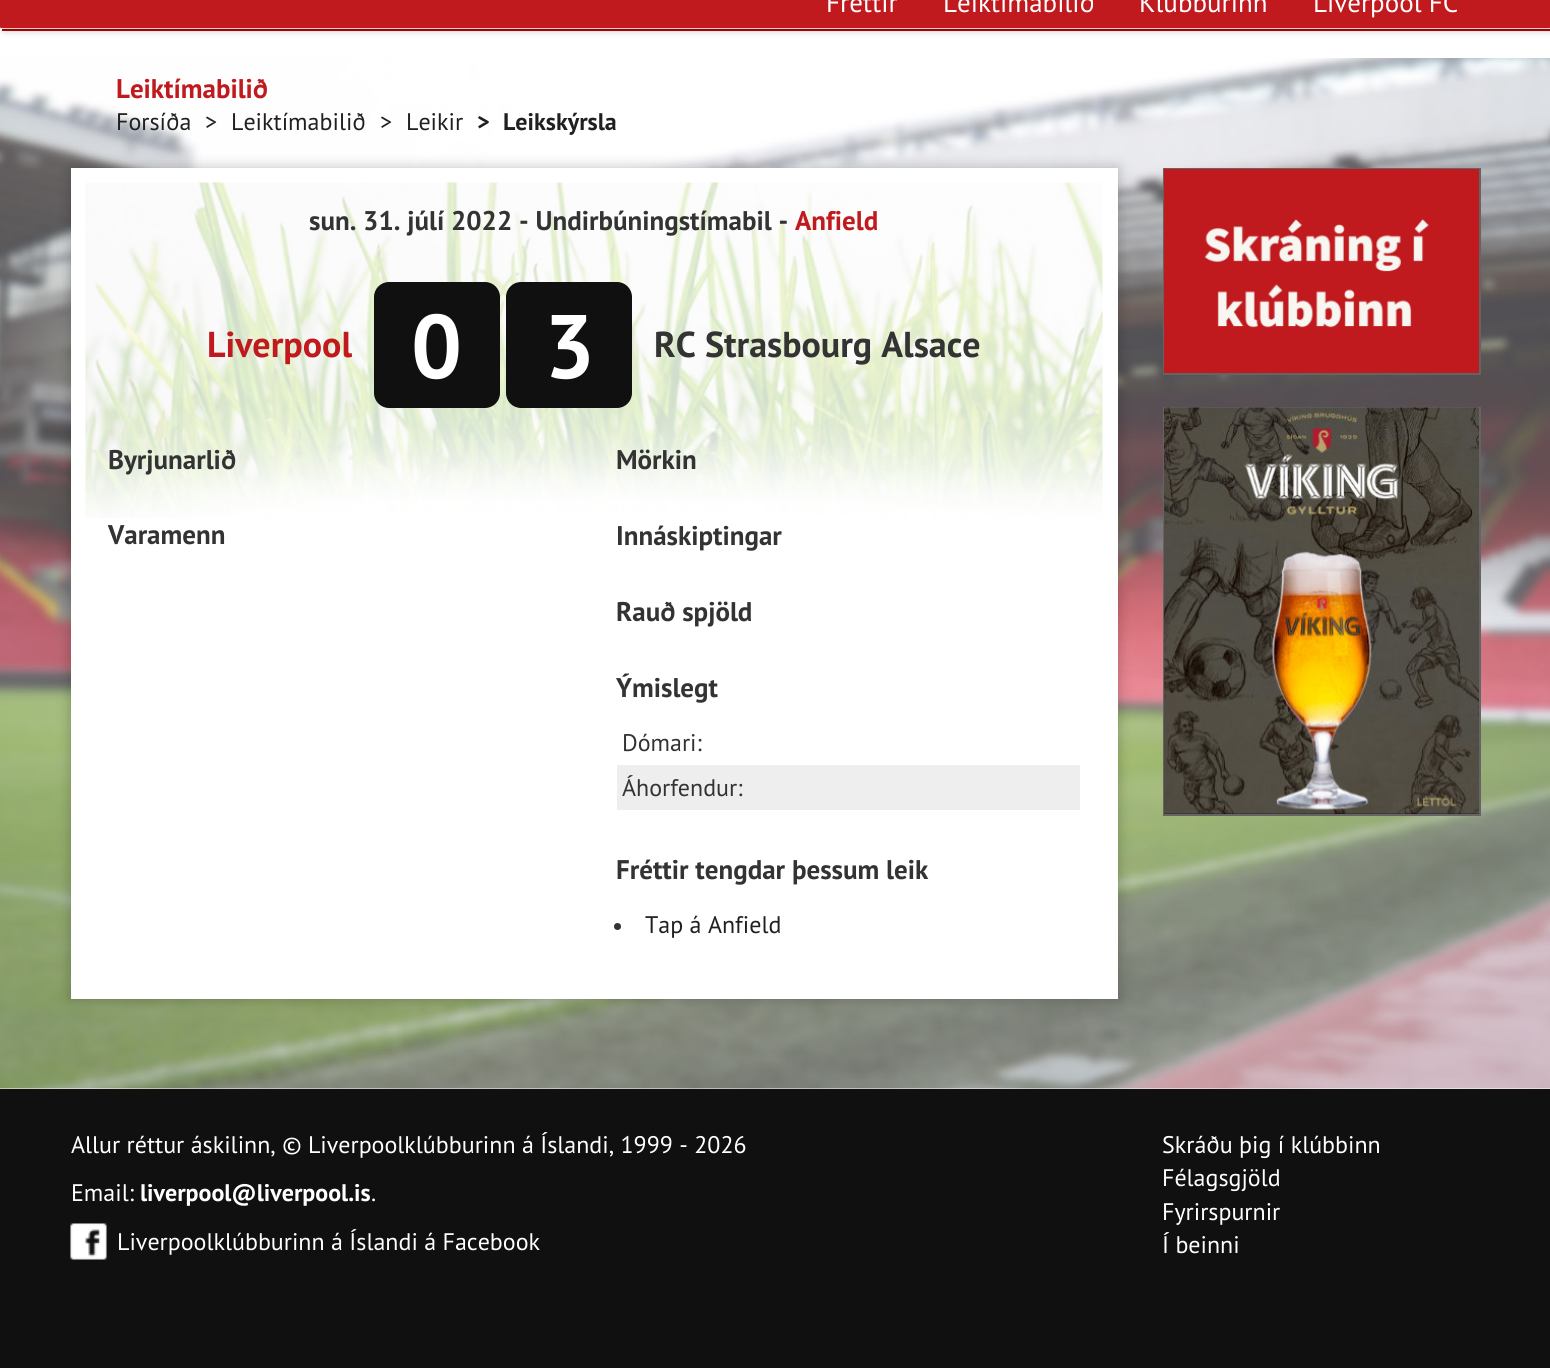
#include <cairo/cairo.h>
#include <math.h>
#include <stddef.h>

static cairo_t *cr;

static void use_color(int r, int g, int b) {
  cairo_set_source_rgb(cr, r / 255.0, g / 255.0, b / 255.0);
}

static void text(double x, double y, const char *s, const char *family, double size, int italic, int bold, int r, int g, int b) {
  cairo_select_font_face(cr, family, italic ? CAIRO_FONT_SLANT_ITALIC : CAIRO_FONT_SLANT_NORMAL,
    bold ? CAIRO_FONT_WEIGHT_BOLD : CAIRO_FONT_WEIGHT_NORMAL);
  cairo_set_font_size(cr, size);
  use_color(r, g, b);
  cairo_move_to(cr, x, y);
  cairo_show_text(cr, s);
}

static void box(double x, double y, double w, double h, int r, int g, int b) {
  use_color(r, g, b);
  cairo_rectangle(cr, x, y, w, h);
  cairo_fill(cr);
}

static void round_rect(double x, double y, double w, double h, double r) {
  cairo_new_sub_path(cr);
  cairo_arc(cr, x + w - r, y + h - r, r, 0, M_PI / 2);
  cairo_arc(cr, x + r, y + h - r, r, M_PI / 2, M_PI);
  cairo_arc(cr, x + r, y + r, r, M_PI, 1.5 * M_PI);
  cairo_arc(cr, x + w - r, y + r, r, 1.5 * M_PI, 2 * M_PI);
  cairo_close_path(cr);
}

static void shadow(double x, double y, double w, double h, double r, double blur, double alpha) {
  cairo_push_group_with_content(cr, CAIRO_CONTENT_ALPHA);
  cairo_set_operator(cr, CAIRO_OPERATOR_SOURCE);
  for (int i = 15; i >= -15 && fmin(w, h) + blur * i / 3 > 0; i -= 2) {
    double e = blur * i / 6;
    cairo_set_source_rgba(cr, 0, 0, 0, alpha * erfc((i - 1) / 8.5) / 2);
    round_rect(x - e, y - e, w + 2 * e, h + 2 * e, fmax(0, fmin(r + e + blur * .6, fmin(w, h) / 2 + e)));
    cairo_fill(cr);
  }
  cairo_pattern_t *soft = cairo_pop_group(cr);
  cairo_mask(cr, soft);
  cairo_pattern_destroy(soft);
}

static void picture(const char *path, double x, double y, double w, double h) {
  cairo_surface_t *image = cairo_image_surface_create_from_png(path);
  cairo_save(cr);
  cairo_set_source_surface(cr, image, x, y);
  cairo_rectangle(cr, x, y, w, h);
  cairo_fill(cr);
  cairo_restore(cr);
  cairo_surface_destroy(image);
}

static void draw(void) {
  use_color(255, 255, 255);
  cairo_paint(cr);
  use_color(0, 0, 0);
  shadow(2, -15, 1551, 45, 3, 4, 0.27);
  use_color(192, 25, 30);
  cairo_new_path(cr);
  cairo_move_to(cr, 3, -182);
  cairo_line_to(cr, 1548, -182);
  cairo_curve_to(cr, 1550, -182, 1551, -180, 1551, -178);
  cairo_line_to(cr, 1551, 27);
  cairo_curve_to(cr, 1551, 28, 1550, 28, 1548, 28);
  cairo_line_to(cr, 3, 28);
  cairo_curve_to(cr, 1, 28, 0, 28, 0, 27);
  cairo_line_to(cr, 0, -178);
  cairo_curve_to(cr, 0, -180, 1, -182, 3, -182);
  cairo_close_path(cr);
  cairo_fill(cr);
  box(2, 29, 1548, 2, 166, 0, 0);
  picture("img_01.png", 0, 58, 1550, 1031);
  use_color(0, 0, 0);
  shadow(71, 168, 1047, 831, 0, 7, 0.25);
  box(71, 168, 1047, 831, 255, 255, 255);
  picture("img_02.png", 85, 182, 1018, 336);
  use_color(16, 16, 16);
  round_rect(374, 282, 126, 126, 15);
  cairo_fill(cr);
  round_rect(506, 282, 126, 126, 15);
  cairo_fill(cr);
  box(617, 765, 463, 45, 238, 238, 238);
  use_color(51, 51, 51);
  cairo_arc(cr, 617.5, 926.5, 3.5, 0, 2 * M_PI);
  cairo_fill(cr);
  cairo_rectangle(cr, 1164, 169, 316, 205);
  use_color(100, 100, 100);
  cairo_stroke(cr);
  picture("img_03.png", 1164, 169, 315, 204);
  cairo_rectangle(cr, 1164, 408, 316, 407);
  cairo_stroke(cr);
  picture("img_04.png", 1164, 407, 315, 407);
  box(0, 1089, 1550, 279, 16, 16, 16);
  picture("img_05.png", 70, 1223, 37, 37);
  text(826, 12, "Fréttir", "PT Sans", 27, 0, 0, 255, 255, 255);
  text(943, 12, "Leiktímabilið", "PT Sans", 27, 0, 0, 255, 255, 255);
  text(1139, 12, "Klúbburinn", "PT Sans", 27, 0, 0, 255, 255, 255);
  text(1313, 12, "Liverpool FC", "PT Sans", 27, 0, 0, 255, 255, 255);
  text(116, 98, "Leiktímabilið", "PT Sans", 27, 0, 1, 192, 25, 30);
  text(116, 130, "Forsíða", "PT Sans", 24, 0, 0, 32, 32, 32);
  text(205, 130, ">", "PT Sans", 24, 0, 0, 32, 32, 32);
  text(231, 130, "Leiktímabilið", "PT Sans", 24, 0, 0, 32, 32, 32);
  text(380, 130, ">", "PT Sans", 24, 0, 0, 32, 32, 32);
  text(406, 130, "Leikir", "PT Sans", 24, 0, 0, 32, 32, 32);
  text(477, 130, ">", "PT Sans", 24, 0, 1, 32, 32, 32);
  text(503, 130, "Leikskýrsla", "PT Sans", 24, 0, 1, 32, 32, 32);
  text(309, 230, "sun. 31. júlí 2022 - Undirbúningstímabil -", "PT Sans", 27, 0, 1, 51, 51, 51);
  text(795, 230, "Anfield", "PT Sans", 27, 0, 1, 192, 25, 30);
  text(207, 357, "Liverpool", "PT Sans", 36, 0, 1, 192, 25, 30);
  text(411, 378, "0", "PT Sans", 90, 0, 1, 255, 255, 255);
  text(544, 378, "3", "PT Sans", 90, 0, 1, 255, 255, 255);
  text(654, 357, "RC Strasbourg Alsace", "PT Sans", 36, 0, 1, 51, 51, 51);
  text(108, 469, "Byrjunarlið", "PT Sans", 27, 0, 1, 51, 51, 51);
  text(108, 544, "Varamenn", "PT Sans", 27, 0, 1, 51, 51, 51);
  text(616, 469, "Mörkin", "PT Sans", 27, 0, 1, 51, 51, 51);
  text(616, 545, "Innáskiptingar", "PT Sans", 27, 0, 1, 51, 51, 51);
  text(616, 621, "Rauð spjöld", "PT Sans", 27, 0, 1, 51, 51, 51);
  text(616, 697, "Ýmislegt", "PT Sans", 27, 0, 1, 51, 51, 51);
  text(622, 751, "Dómari:", "PT Sans", 24, 0, 0, 51, 51, 51);
  text(622, 796, "Áhorfendur:", "PT Sans", 24, 0, 0, 51, 51, 51);
  text(616, 879, "Fréttir tengdar þessum leik", "PT Sans", 27, 0, 1, 51, 51, 51);
  text(645, 933, "Tap á Anfield", "PT Sans", 24, 0, 0, 32, 32, 32);
  text(71, 1153, "Allur réttur áskilinn, © Liverpoolklúbburinn á Íslandi, 1999 - 2026", "PT Sans", 24, 0, 0, 255, 255, 255);
  text(71, 1201, "Email:", "PT Sans", 24, 0, 0, 255, 255, 255);
  text(140, 1201, "liverpool@liverpool.is", "PT Sans", 24, 0, 1, 255, 255, 255);
  text(371, 1201, ".", "PT Sans", 24, 0, 0, 255, 255, 255);
  text(117, 1250, "Liverpoolklúbburinn á Íslandi á Facebook", "PT Sans", 24, 0, 0, 255, 255, 255);
  text(1162, 1153, "Skráðu þig í klúbbinn", "PT Sans", 24, 0, 0, 255, 255, 255);
  text(1162, 1186, "Félagsgjöld", "PT Sans", 24, 0, 0, 255, 255, 255);
  text(1162, 1220, "Fyrirspurnir", "PT Sans", 24, 0, 0, 255, 255, 255);
  text(1162, 1253, "Í beinni", "PT Sans", 24, 0, 0, 255, 255, 255);
}

int main(void) {
  cairo_surface_t *surface = cairo_image_surface_create(CAIRO_FORMAT_RGB24, 1550, 1368);
  cr = cairo_create(surface);
  cairo_font_options_t *options = cairo_font_options_create();
  cairo_font_options_set_hint_metrics(options, CAIRO_HINT_METRICS_OFF);
  cairo_font_options_set_hint_style(options, CAIRO_HINT_STYLE_NONE);
  cairo_set_font_options(cr, options);
  cairo_set_miter_limit(cr, 4);
  draw();
  cairo_surface_write_to_png(surface, "out.png");
  cairo_font_options_destroy(options);
  cairo_destroy(cr);
  cairo_surface_destroy(surface);
  return 0;
}
